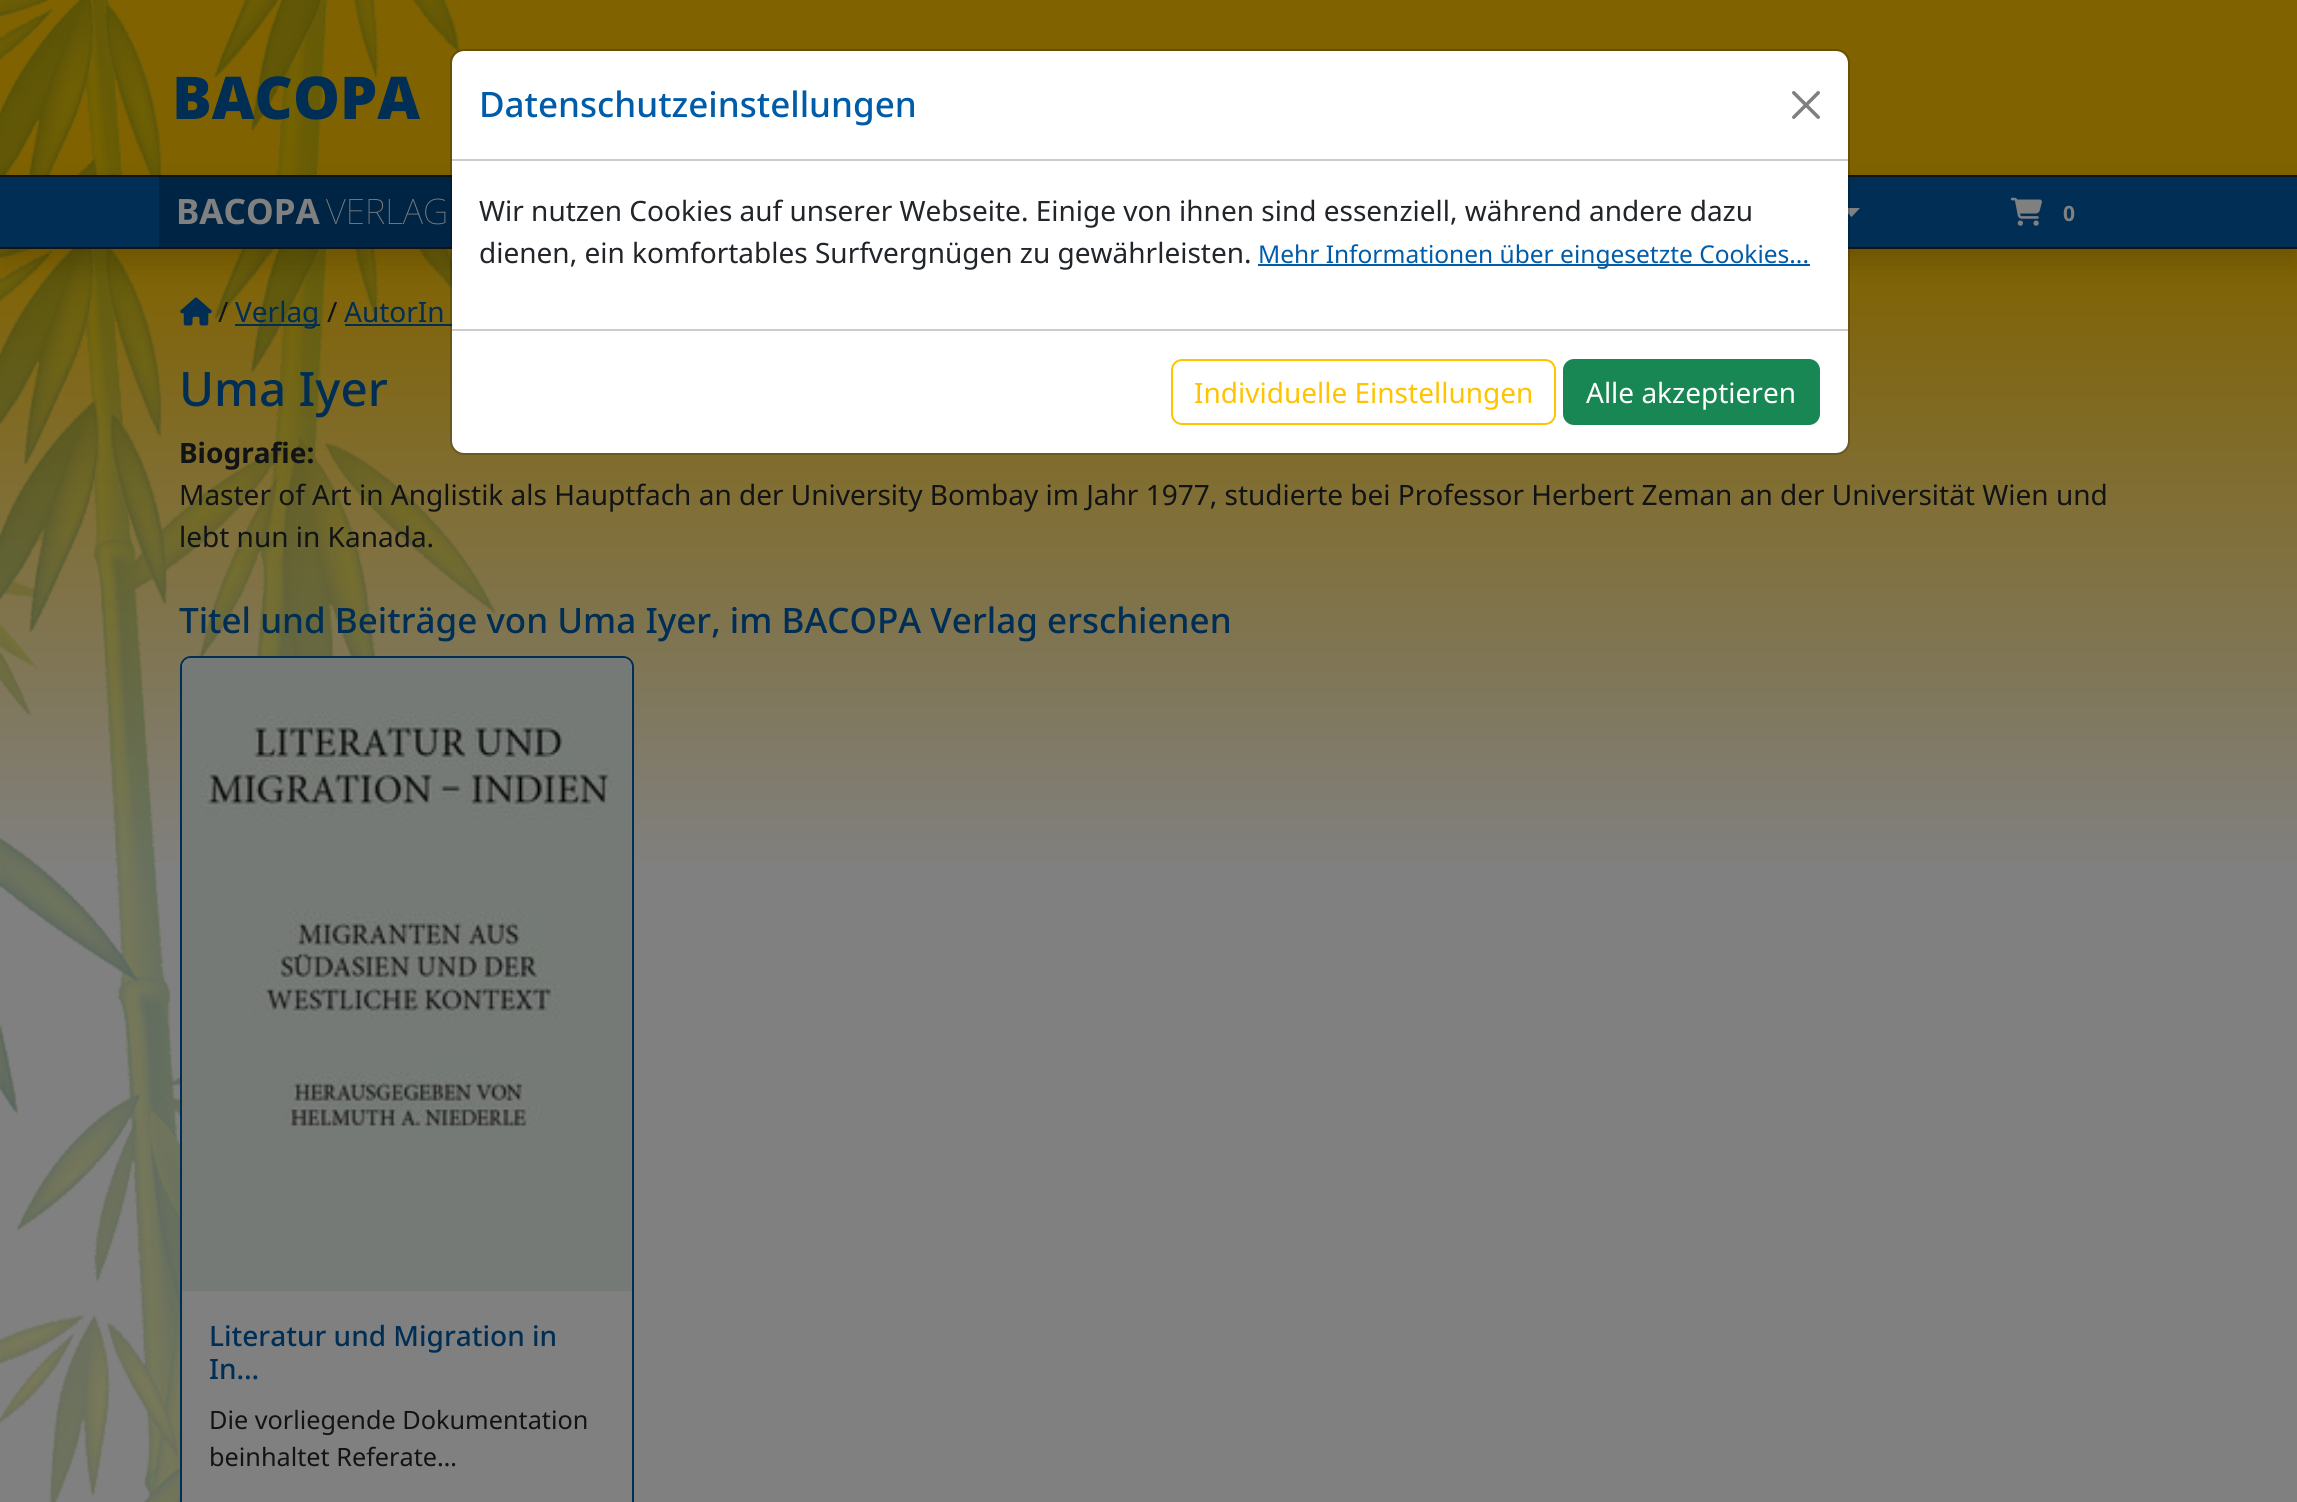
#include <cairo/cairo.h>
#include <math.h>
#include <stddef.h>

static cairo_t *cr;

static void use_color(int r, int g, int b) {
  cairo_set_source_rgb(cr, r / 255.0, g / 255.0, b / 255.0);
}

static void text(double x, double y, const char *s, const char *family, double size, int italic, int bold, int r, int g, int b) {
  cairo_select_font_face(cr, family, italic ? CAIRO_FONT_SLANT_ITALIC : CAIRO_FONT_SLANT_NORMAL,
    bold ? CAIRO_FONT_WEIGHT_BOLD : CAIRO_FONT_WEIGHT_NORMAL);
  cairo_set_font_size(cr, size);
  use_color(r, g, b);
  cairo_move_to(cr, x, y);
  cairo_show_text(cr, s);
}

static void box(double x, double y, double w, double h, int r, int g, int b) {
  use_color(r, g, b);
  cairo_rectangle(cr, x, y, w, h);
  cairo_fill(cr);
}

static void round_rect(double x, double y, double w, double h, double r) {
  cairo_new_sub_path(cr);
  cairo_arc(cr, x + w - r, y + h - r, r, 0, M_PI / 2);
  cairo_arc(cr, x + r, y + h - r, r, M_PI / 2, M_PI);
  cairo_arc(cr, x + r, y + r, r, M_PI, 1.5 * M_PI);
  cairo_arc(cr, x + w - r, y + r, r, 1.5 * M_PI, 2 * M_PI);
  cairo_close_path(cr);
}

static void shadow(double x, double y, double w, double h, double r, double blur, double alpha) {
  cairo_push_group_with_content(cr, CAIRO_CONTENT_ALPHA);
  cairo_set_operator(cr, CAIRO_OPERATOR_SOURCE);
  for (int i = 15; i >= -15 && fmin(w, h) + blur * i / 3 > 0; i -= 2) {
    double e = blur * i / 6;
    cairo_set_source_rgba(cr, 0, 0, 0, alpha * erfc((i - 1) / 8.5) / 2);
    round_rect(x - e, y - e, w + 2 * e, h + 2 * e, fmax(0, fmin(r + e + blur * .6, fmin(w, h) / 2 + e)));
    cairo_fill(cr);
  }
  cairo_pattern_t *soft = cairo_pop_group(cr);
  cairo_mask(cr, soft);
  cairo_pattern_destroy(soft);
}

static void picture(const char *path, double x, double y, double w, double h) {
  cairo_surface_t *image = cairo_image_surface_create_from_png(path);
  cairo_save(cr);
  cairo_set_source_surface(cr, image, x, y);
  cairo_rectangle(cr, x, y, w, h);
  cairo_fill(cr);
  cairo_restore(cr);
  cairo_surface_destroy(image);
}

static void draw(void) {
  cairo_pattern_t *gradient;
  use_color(255, 255, 255);
  cairo_paint(cr);
  box(0, 0, 2297, 175, 128, 98, 0);
  picture("img_01.png", 0, 0, 461, 175);
  gradient = cairo_pattern_create_linear(1149, 241, 1149, 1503);
  cairo_pattern_add_color_stop_rgba(gradient, 0, 0.502, 0.384, 0, 1);
  cairo_pattern_add_color_stop_rgba(gradient, 0.5, 0.502, 0.502, 0.502, 1);
  cairo_set_source(cr, gradient);
  cairo_pattern_destroy(gradient);
  cairo_rectangle(cr, 0, 249, 2297, 1253);
  cairo_fill(cr);
  picture("img_06.png", 0, 249, 496, 1253);
  picture("img_05.png", 180, 297, 32, 29);
  use_color(0, 0, 0);
  shadow(0, 189, 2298, 74, 0, 14, 0.15);
  box(0, 177, 2297, 70, 0, 46, 85);
  box(0, 175, 2297, 2, 17, 19, 21);
  box(0, 247, 2297, 2, 17, 19, 21);
  box(159, 177, 293, 70, 0, 37, 68);
  use_color(128, 128, 128);
  cairo_new_path(cr);
  cairo_move_to(cr, 1843, 208);
  cairo_line_to(cr, 1860, 208);
  cairo_line_to(cr, 1851.5, 217);
  cairo_close_path(cr);
  cairo_fill(cr);
  picture("img_02.png", 2010, 197, 32, 29);
  use_color(255, 255, 255);
  round_rect(452, 51, 1396, 402, 12);
  cairo_fill(cr);
  box(345, 324, 107, 2, 0, 46, 85);
  round_rect(451, 50, 1398, 404, 13);
  cairo_set_source_rgba(cr, 0, 0, 0, 0.18);
  cairo_stroke(cr);
  box(452, 159, 1396, 2, 204, 204, 204);
  picture("img_03.png", 1792, 91, 28, 28);
  box(1258, 264, 552, 2, 0, 92, 169);
  box(452, 329, 1396, 2, 204, 204, 204);
  round_rect(1172, 360, 383, 64, 10);
  use_color(255, 195, 0);
  cairo_stroke(cr);
  use_color(25, 135, 84);
  round_rect(1564, 360, 255, 64, 10);
  cairo_fill_preserve(cr);
  cairo_stroke(cr);
  use_color(128, 128, 128);
  round_rect(181, 657, 452, 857, 10);
  cairo_fill_preserve(cr);
  use_color(0, 46, 85);
  cairo_stroke(cr);
  picture("img_04.png", 182, 658, 450, 634);
  box(235, 324, 85, 2, 0, 46, 85);
  text(172, 119, "BACOPA", "Noto Sans Black", 59, 0, 0, 0, 46, 85);
  text(176, 224, "BACOPA", "Noto Sans", 35, 0, 1, 128, 128, 128);
  text(326, 224, "VERLAG", "Noto Sans Thin", 35, 0, 0, 128, 128, 128);
  text(2063, 221, "0", "Noto Sans", 21, 0, 1, 128, 128, 128);
  text(479, 117, "Datenschutzeinstellungen", "Noto Sans Medium", 35, 0, 0, 0, 92, 169);
  text(479, 221, "Wir nutzen Cookies auf unserer Webseite. Einige von ihnen sind essenziell, während andere dazu", "Noto Sans", 28, 0, 0, 33, 37, 41);
  text(479, 263, "dienen, ein komfortables Surfvergnügen zu gewährleisten.", "Noto Sans", 28, 0, 0, 33, 37, 41);
  text(1258, 263, "Mehr Informationen über eingesetzte Cookies...", "Noto Sans", 24.5, 0, 0, 0, 92, 169);
  text(1194, 403, "Individuelle Einstellungen", "Noto Sans", 28, 0, 0, 255, 195, 0);
  text(1586, 403, "Alle akzeptieren", "Noto Sans", 28, 0, 0, 255, 255, 255);
  text(179, 406, "Uma Iyer", "Noto Sans Medium", 47.5, 0, 0, 0, 46, 85);
  text(179, 463, "Biografie:", "Noto Sans", 28, 0, 1, 17, 19, 21);
  text(179, 505, "Master of Art in Anglistik als Hauptfach an der University Bombay im Jahr 1977, studierte bei Professor Herbert Zeman an der Universität Wien und", "Noto Sans", 28, 0, 0, 17, 19, 21);
  text(179, 547, "lebt nun in Kanada.", "Noto Sans", 28, 0, 0, 17, 19, 21);
  text(179, 633, "Titel und Beiträge von Uma Iyer, im BACOPA Verlag erschienen", "Noto Sans Medium", 35, 0, 0, 0, 46, 85);
  text(209, 1346, "Literatur und Migration in", "Noto Sans Medium", 28, 0, 0, 0, 46, 85);
  text(209, 1379, "In…", "Noto Sans Medium", 28, 0, 0, 0, 46, 85);
  text(209, 1429, "Die vorliegende Dokumentation", "Noto Sans", 25.25, 0, 0, 17, 19, 21);
  text(209, 1466, "beinhaltet Referate…", "Noto Sans", 25.25, 0, 0, 17, 19, 21);
  text(218, 322, "/", "Noto Sans", 28, 0, 0, 17, 19, 21);
  text(235, 322, "Verlag", "Noto Sans", 28, 0, 0, 0, 46, 85);
  text(327, 322, "/", "Noto Sans", 28, 0, 0, 17, 19, 21);
  text(344, 322, "AutorIn", "Noto Sans", 28, 0, 0, 0, 46, 85);
}

int main(void) {
  cairo_surface_t *surface = cairo_image_surface_create(CAIRO_FORMAT_RGB24, 2297, 1502);
  cr = cairo_create(surface);
  cairo_font_options_t *options = cairo_font_options_create();
  cairo_font_options_set_hint_metrics(options, CAIRO_HINT_METRICS_OFF);
  cairo_font_options_set_hint_style(options, CAIRO_HINT_STYLE_NONE);
  cairo_set_font_options(cr, options);
  cairo_set_miter_limit(cr, 4);
  draw();
  cairo_surface_write_to_png(surface, "out.png");
  cairo_font_options_destroy(options);
  cairo_destroy(cr);
  cairo_surface_destroy(surface);
  return 0;
}
